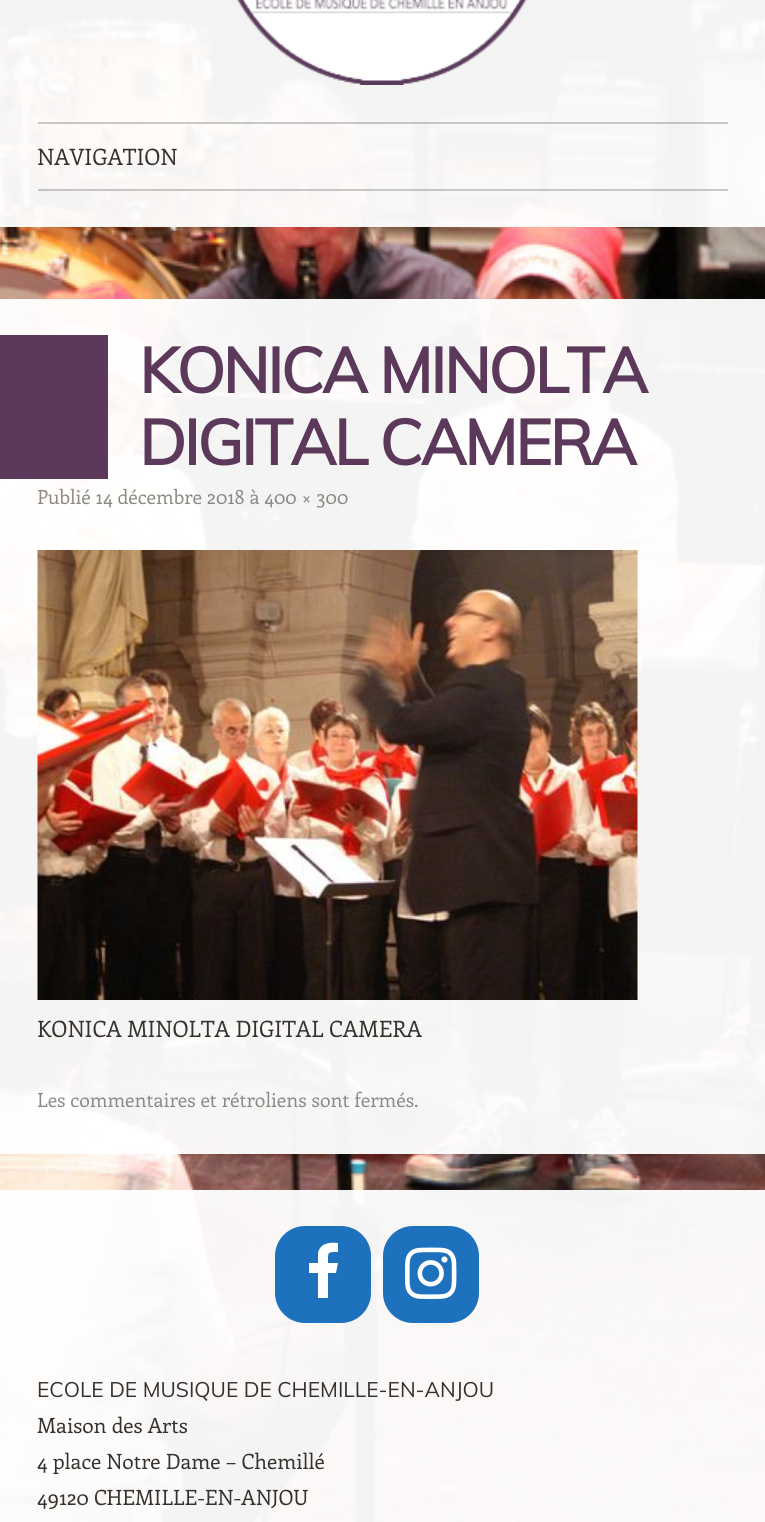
#include <cairo/cairo.h>
#include <math.h>
#include <stddef.h>

static cairo_t *cr;

static void use_color(int r, int g, int b) {
  cairo_set_source_rgb(cr, r / 255.0, g / 255.0, b / 255.0);
}

static void text(double x, double y, const char *s, const char *family, double size, int italic, int bold, int r, int g, int b) {
  cairo_select_font_face(cr, family, italic ? CAIRO_FONT_SLANT_ITALIC : CAIRO_FONT_SLANT_NORMAL,
    bold ? CAIRO_FONT_WEIGHT_BOLD : CAIRO_FONT_WEIGHT_NORMAL);
  cairo_set_font_size(cr, size);
  use_color(r, g, b);
  cairo_move_to(cr, x, y);
  cairo_show_text(cr, s);
}

static void spaced_text(double x, double y, const char *s, double letter, double word) {
  cairo_move_to(cr, x, y);
  while (*s) {
    char ch[5] = {0};
    int n = 0;
    do ch[n++] = *s++; while ((*s & 0xC0) == 0x80);
    cairo_show_text(cr, ch);
    cairo_rel_move_to(cr, letter + word * (*ch == ' '), 0);
  }
}

static void box(double x, double y, double w, double h, int r, int g, int b) {
  use_color(r, g, b);
  cairo_rectangle(cr, x, y, w, h);
  cairo_fill(cr);
}

static void round_rect(double x, double y, double w, double h, double r) {
  cairo_new_sub_path(cr);
  cairo_arc(cr, x + w - r, y + h - r, r, 0, M_PI / 2);
  cairo_arc(cr, x + r, y + h - r, r, M_PI / 2, M_PI);
  cairo_arc(cr, x + r, y + r, r, M_PI, 1.5 * M_PI);
  cairo_arc(cr, x + w - r, y + r, r, 1.5 * M_PI, 2 * M_PI);
  cairo_close_path(cr);
}

static void picture(const char *path, double x, double y, double w, double h) {
  cairo_surface_t *image = cairo_image_surface_create_from_png(path);
  cairo_save(cr);
  cairo_set_source_surface(cr, image, x, y);
  cairo_rectangle(cr, x, y, w, h);
  cairo_fill(cr);
  cairo_restore(cr);
  cairo_surface_destroy(image);
}

static void draw(void) {
  use_color(255, 255, 255);
  cairo_paint(cr);
  picture("img_01.png", 0, 0, 765, 1522);
  cairo_set_source_rgba(cr, 1, 1, 1, 0.95);
  cairo_rectangle(cr, 0, 0, 765, 227);
  cairo_fill(cr);
  picture("img_02.png", 236, 0, 291, 85);
  cairo_set_source_rgba(cr, 0, 0, 0, 0.2);
  cairo_rectangle(cr, 38, 122, 690, 2);
  cairo_fill(cr);
  cairo_rectangle(cr, 38, 189, 690, 2);
  cairo_fill(cr);
  cairo_set_source_rgba(cr, 1, 1, 1, 0.95);
  cairo_rectangle(cr, 0, 299, 765, 855);
  cairo_fill(cr);
  box(0, 335, 108, 144, 92, 57, 90);
  picture("img_03.png", 37, 550, 601, 450);
  cairo_set_source_rgba(cr, 1, 1, 1, 0.95);
  cairo_rectangle(cr, 0, 1190, 765, 332);
  cairo_fill(cr);
  use_color(30, 114, 189);
  round_rect(275, 1226, 96, 97, 30);
  cairo_fill(cr);
  use_color(255, 255, 255);
  cairo_new_path(cr);
  cairo_move_to(cr, 338, 1243);
  cairo_line_to(cr, 338, 1252);
  cairo_curve_to(cr, 327, 1252, 328, 1252, 328, 1263);
  cairo_line_to(cr, 338, 1263);
  cairo_line_to(cr, 336, 1273);
  cairo_line_to(cr, 328, 1273);
  cairo_line_to(cr, 328, 1298);
  cairo_line_to(cr, 318, 1298);
  cairo_line_to(cr, 318, 1273);
  cairo_line_to(cr, 309, 1273);
  cairo_line_to(cr, 309, 1263);
  cairo_line_to(cr, 318, 1263);
  cairo_line_to(cr, 318, 1253);
  cairo_curve_to(cr, 320, 1243, 330, 1242, 338, 1243);
  cairo_close_path(cr);
  cairo_fill(cr);
  use_color(30, 114, 189);
  round_rect(383, 1226, 96, 97, 30);
  cairo_fill(cr);
  picture("img_04.png", 405, 1247, 52, 52);
  text(37, 165, "NAVIGATION", "Enriqueta", 22.5, 0, 0, 54, 49, 45);
  cairo_select_font_face(cr, "Muli", CAIRO_FONT_SLANT_NORMAL, CAIRO_FONT_WEIGHT_BOLD);
  cairo_set_font_size(cr, 63);
  use_color(92, 57, 90);
  spaced_text(139, 393, "KONICA MINOLTA", -2.5, 0);
  spaced_text(139, 465, "DIGITAL CAMERA", -2.5, 0);
  text(37, 504, "Publié 14 décembre 2018 à 400 × 300", "Enriqueta", 19.5, 0, 0, 140, 136, 133);
  text(37, 1037, "KONICA MINOLTA DIGITAL CAMERA", "Enriqueta", 22.5, 0, 0, 54, 49, 45);
  text(37, 1107, "Les commentaires et rétroliens sont fermés.", "Enriqueta", 19.5, 0, 0, 140, 136, 133);
  text(37, 1397, "ECOLE DE MUSIQUE DE CHEMILLE-EN-ANJOU", "Muli", 21, 0, 0, 54, 49, 45);
  text(37, 1433, "Maison des Arts", "Enriqueta", 21, 0, 0, 54, 49, 45);
  text(37, 1469, "4 place Notre Dame – Chemillé", "Enriqueta", 21, 0, 0, 54, 49, 45);
  text(37, 1505, "49120 CHEMILLE-EN-ANJOU", "Enriqueta", 21, 0, 0, 54, 49, 45);
}

int main(void) {
  cairo_surface_t *surface = cairo_image_surface_create(CAIRO_FORMAT_RGB24, 765, 1522);
  cr = cairo_create(surface);
  cairo_font_options_t *options = cairo_font_options_create();
  cairo_font_options_set_hint_metrics(options, CAIRO_HINT_METRICS_OFF);
  cairo_font_options_set_hint_style(options, CAIRO_HINT_STYLE_NONE);
  cairo_set_font_options(cr, options);
  cairo_set_miter_limit(cr, 4);
  draw();
  cairo_surface_write_to_png(surface, "out.png");
  cairo_font_options_destroy(options);
  cairo_destroy(cr);
  cairo_surface_destroy(surface);
  return 0;
}
